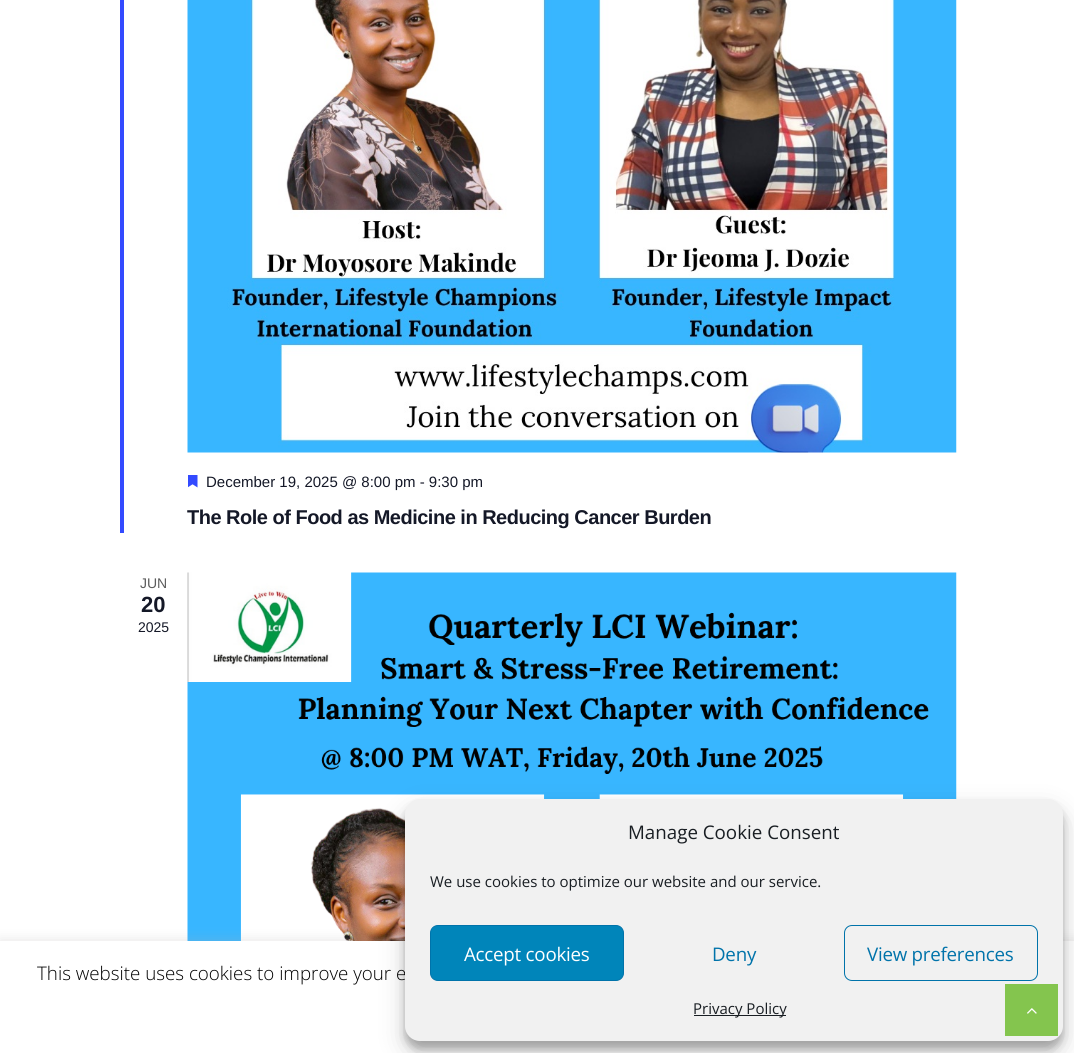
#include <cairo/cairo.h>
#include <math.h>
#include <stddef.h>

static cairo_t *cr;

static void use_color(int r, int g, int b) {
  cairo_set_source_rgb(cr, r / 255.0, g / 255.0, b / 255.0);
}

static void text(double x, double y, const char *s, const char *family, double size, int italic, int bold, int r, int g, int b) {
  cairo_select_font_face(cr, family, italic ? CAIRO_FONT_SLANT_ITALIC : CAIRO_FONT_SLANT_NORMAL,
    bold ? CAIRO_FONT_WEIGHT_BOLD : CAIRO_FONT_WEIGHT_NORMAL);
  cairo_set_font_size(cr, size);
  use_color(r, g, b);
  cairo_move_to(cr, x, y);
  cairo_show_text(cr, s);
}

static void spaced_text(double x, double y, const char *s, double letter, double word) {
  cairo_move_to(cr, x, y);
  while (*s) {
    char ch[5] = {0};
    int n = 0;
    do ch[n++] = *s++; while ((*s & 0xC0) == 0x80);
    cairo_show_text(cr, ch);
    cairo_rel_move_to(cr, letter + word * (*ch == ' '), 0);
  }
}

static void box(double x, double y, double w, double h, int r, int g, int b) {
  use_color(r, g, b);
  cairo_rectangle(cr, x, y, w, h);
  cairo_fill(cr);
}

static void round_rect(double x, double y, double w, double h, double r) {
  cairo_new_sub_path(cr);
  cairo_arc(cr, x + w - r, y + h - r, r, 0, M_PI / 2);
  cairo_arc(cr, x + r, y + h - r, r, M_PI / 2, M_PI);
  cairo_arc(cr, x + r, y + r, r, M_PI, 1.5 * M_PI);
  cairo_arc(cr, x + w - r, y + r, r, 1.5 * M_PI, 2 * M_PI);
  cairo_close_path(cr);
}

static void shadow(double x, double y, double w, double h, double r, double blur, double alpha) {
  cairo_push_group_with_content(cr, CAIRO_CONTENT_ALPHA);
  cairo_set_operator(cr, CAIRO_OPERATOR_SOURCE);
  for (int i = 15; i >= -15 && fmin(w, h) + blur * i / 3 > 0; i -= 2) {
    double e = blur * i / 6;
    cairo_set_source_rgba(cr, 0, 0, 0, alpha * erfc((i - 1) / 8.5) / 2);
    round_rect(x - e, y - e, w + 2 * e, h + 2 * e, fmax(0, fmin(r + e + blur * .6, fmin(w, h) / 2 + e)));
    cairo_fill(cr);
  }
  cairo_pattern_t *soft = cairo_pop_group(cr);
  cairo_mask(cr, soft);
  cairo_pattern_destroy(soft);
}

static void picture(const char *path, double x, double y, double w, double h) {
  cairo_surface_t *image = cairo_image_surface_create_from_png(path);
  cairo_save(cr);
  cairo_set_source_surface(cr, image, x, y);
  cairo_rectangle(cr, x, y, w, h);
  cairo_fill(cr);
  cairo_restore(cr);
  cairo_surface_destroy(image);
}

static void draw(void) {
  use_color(255, 255, 255);
  cairo_paint(cr);
  box(120, 0, 4, 533, 51, 74, 255);
  picture("img_01.png", 187, 0, 770, 453);
  picture("img_02.png", 188, 475, 10, 13);
  picture("img_03.png", 187, 572, 770, 369);
  use_color(172, 171, 171);
  shadow(0, 940, 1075, 113, 0, 6, 0.3);
  box(0, 941, 1074, 112, 255, 255, 255);
  use_color(0, 0, 0);
  shadow(405, 806, 658, 243, 15, 4, 0.23);
  shadow(405, 811, 658, 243, 15, 12.5, 0.19);
  text(206, 487, "December 19, 2025 @ 8:00 pm - 9:30 pm", "Liberation Sans", 15, 0, 0, 20, 24, 39);
  cairo_select_font_face(cr, "Liberation Sans", CAIRO_FONT_SLANT_NORMAL, CAIRO_FONT_WEIGHT_BOLD);
  cairo_set_font_size(cr, 20);
  spaced_text(187, 524, "The Role of Food as Medicine in Reducing Cancer Burden", -0.5, 0);
  text(140, 588, "JUN", "Liberation Sans", 14, 0, 0, 93, 93, 93);
  text(141, 612, "20", "Liberation Sans", 22, 0, 1, 20, 24, 39);
  text(138, 632, "2025", "Liberation Sans", 14, 0, 0, 20, 24, 39);
  text(37, 980, "This website uses cookies to improve your e", "Open Sans Light", 18.75, 0, 0, 0, 0, 0);
  use_color(241, 241, 241);
  round_rect(405, 799, 658, 242, 15);
  cairo_fill(cr);
  text(628, 839, "Manage Cookie Consent", "Open Sans", 18.75, 0, 0, 25, 30, 35);
  text(430, 887, "We use cookies to optimize our website and our service.", "Open Sans", 15, 0, 0, 25, 30, 35);
  use_color(0, 133, 186);
  round_rect(430.5, 925.5, 193, 55, 7.5);
  cairo_fill_preserve(cr);
  use_color(0, 115, 170);
  cairo_set_line_width(cr, 1);
  cairo_stroke(cr);
  cairo_set_font_size(cr, 18.75);
  use_color(255, 255, 255);
  spaced_text(464, 961, "Accept cookies", -0.25, 0);
  use_color(0, 115, 170);
  spaced_text(712, 961, "Deny", -0.25, 0);
  round_rect(844.5, 925.5, 193, 55, 7.5);
  cairo_stroke(cr);
  spaced_text(867, 961, "View preferences", -0.25, 0);
  box(694, 1015, 92, 1, 25, 30, 35);
  text(693, 1014, "Privacy Policy", "Open Sans", 15, 0, 0, 25, 30, 35);
  box(1005, 984, 53, 52, 132, 197, 78);
  picture("img_04.png", 1027, 1008, 10, 6);
}

int main(void) {
  cairo_surface_t *surface = cairo_image_surface_create(CAIRO_FORMAT_RGB24, 1074, 1053);
  cr = cairo_create(surface);
  cairo_font_options_t *options = cairo_font_options_create();
  cairo_font_options_set_hint_metrics(options, CAIRO_HINT_METRICS_OFF);
  cairo_font_options_set_hint_style(options, CAIRO_HINT_STYLE_NONE);
  cairo_set_font_options(cr, options);
  cairo_set_miter_limit(cr, 4);
  draw();
  cairo_surface_write_to_png(surface, "out.png");
  cairo_font_options_destroy(options);
  cairo_destroy(cr);
  cairo_surface_destroy(surface);
  return 0;
}
